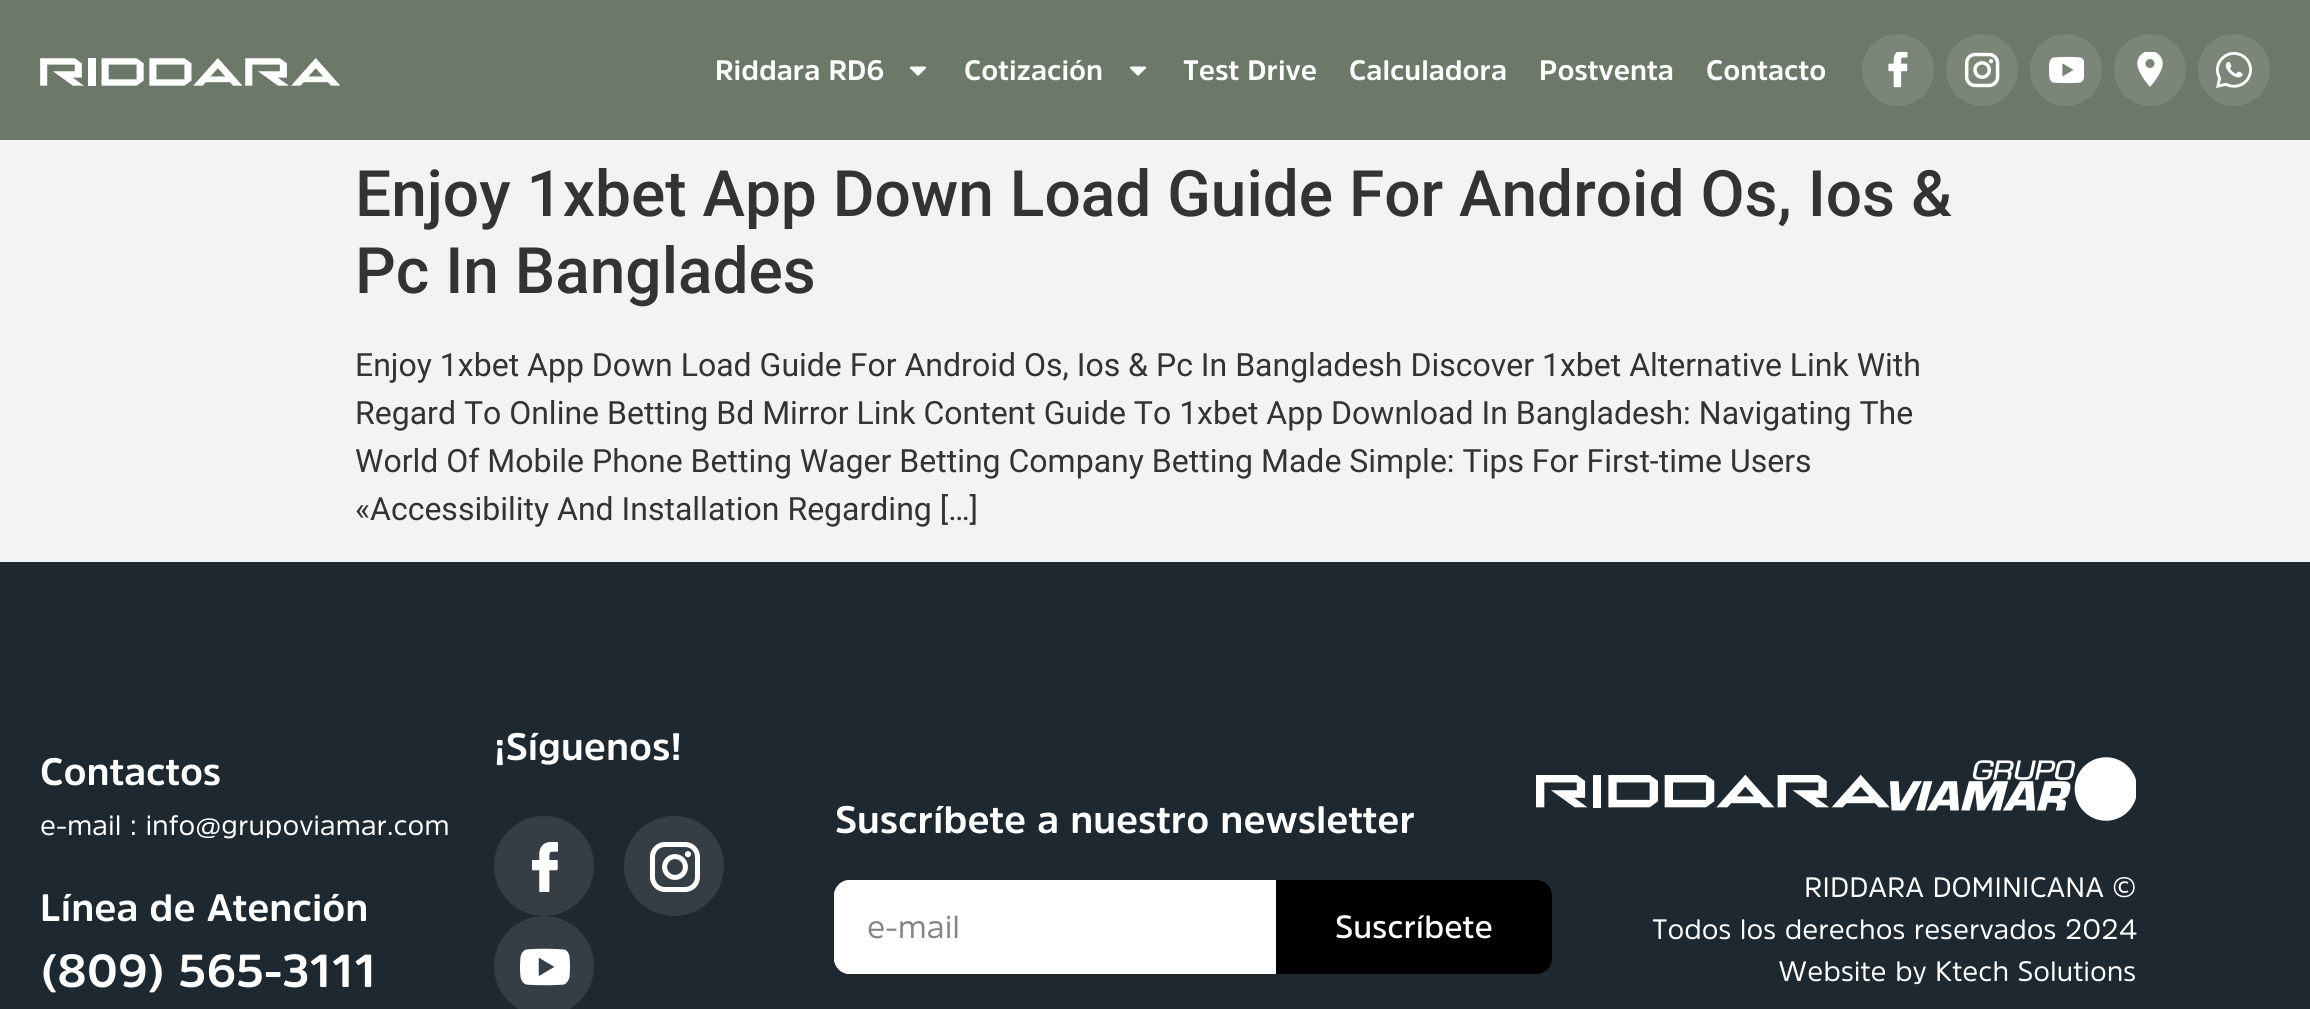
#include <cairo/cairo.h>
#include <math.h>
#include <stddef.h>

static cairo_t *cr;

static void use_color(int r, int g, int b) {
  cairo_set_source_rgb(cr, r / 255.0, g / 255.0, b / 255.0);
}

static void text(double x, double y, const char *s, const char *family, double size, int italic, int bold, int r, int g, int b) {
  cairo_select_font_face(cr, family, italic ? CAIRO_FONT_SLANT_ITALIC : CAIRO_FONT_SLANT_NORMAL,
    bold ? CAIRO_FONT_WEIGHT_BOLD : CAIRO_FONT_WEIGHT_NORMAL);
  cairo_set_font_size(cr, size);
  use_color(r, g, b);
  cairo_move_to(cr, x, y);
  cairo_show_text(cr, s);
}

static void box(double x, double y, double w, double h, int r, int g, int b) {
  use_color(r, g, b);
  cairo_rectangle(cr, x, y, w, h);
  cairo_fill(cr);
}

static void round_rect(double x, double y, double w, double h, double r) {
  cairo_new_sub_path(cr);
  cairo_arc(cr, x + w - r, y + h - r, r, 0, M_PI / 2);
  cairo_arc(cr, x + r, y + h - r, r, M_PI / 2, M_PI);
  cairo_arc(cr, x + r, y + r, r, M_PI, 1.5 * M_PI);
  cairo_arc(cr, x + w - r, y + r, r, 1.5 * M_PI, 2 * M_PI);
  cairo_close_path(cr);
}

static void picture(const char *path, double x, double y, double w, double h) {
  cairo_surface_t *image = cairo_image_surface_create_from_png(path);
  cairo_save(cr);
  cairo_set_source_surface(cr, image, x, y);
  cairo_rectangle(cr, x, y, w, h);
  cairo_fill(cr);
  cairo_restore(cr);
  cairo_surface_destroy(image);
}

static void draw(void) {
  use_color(243, 243, 243);
  cairo_paint(cr);
  box(0, 0, 2310, 140, 108, 121, 105);
  picture("img_01.png", 40, 58, 300, 28);
  picture("img_02.png", 909, 66, 18, 10);
  picture("img_02.png", 1129, 66, 18, 10);
  use_color(123, 134, 120);
  cairo_arc(cr, 1898, 70, 36, 0, 2 * M_PI);
  cairo_fill(cr);
  picture("img_03.png", 1888, 52, 20, 36);
  cairo_arc(cr, 1982, 70, 36, 0, 2 * M_PI);
  cairo_fill(cr);
  picture("img_04.png", 1964, 52, 36, 36);
  cairo_arc(cr, 2066, 70, 36, 0, 2 * M_PI);
  cairo_fill(cr);
  picture("img_05.png", 2048, 56, 36, 28);
  cairo_arc(cr, 2150, 70, 36, 0, 2 * M_PI);
  cairo_fill(cr);
  picture("img_06.png", 2137, 52, 26, 35);
  cairo_arc(cr, 2234, 70, 36, 0, 2 * M_PI);
  cairo_fill(cr);
  picture("img_07.png", 2216, 52, 36, 36);
  box(0, 562, 2310, 447, 30, 40, 48);
  use_color(53, 62, 69);
  cairo_arc(cr, 544, 866, 50, 0, 2 * M_PI);
  cairo_fill(cr);
  picture("img_08.png", 532, 842, 26, 50);
  cairo_arc(cr, 674, 866, 50, 0, 2 * M_PI);
  cairo_fill(cr);
  picture("img_09.png", 650, 842, 50, 50);
  cairo_arc(cr, 544, 966, 50, 0, 2 * M_PI);
  cairo_fill(cr);
  picture("img_10.png", 520, 948, 50, 38);
  use_color(255, 255, 255);
  round_rect(834, 880, 642, 94, 16);
  cairo_fill(cr);
  cairo_new_path(cr);
  cairo_move_to(cr, 850, 880);
  cairo_line_to(cr, 1248, 880);
  cairo_curve_to(cr, 1252.5, 880, 1256, 883.5, 1256, 888);
  cairo_line_to(cr, 1256, 966);
  cairo_curve_to(cr, 1256, 970.5, 1252.5, 974, 1248, 974);
  cairo_line_to(cr, 850, 974);
  cairo_curve_to(cr, 841, 974, 834, 967, 834, 958);
  cairo_line_to(cr, 834, 896);
  cairo_curve_to(cr, 834, 887, 841, 880, 850, 880);
  cairo_close_path(cr);
  cairo_fill(cr);
  use_color(0, 0, 0);
  cairo_new_path(cr);
  cairo_move_to(cr, 1276, 880);
  cairo_line_to(cr, 1536, 880);
  cairo_curve_to(cr, 1545, 880, 1552, 887, 1552, 896);
  cairo_line_to(cr, 1552, 958);
  cairo_curve_to(cr, 1552, 967, 1545, 974, 1536, 974);
  cairo_line_to(cr, 1276, 974);
  cairo_close_path(cr);
  cairo_fill(cr);
  picture("img_11.png", 1536, 774, 354, 34);
  picture("img_12.png", 1890, 757, 246, 64);
  text(715, 80, "Riddara RD6", "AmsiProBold", 28, 0, 1, 255, 255, 255);
  text(964, 80, "Cotización", "AmsiProBold", 28, 0, 1, 255, 255, 255);
  text(1183, 80, "Test Drive", "AmsiProBold", 28, 0, 1, 255, 255, 255);
  text(1349, 80, "Calculadora", "AmsiProBold", 28, 0, 1, 255, 255, 255);
  text(1539, 80, "Postventa", "AmsiProBold", 28, 0, 1, 255, 255, 255);
  text(1706, 80, "Contacto", "AmsiProBold", 28, 0, 1, 255, 255, 255);
  text(355, 216, "Enjoy 1xbet App Down Load Guide For Android Os, Ios &", "Roboto Medium", 64, 0, 0, 51, 51, 51);
  text(355, 293, "Pc In Banglades", "Roboto Medium", 64, 0, 0, 51, 51, 51);
  text(355, 376, "Enjoy 1xbet App Down Load Guide For Android Os, Ios & Pc In Bangladesh Discover 1xbet Alternative Link With", "Roboto", 32, 0, 0, 51, 51, 51);
  text(355, 424, "Regard To Online Betting Bd Mirror Link Content Guide To 1xbet App Download In Bangladesh: Navigating The", "Roboto", 32, 0, 0, 51, 51, 51);
  text(355, 472, "World Of Mobile Phone Betting Wager Betting Company Betting Made Simple: Tips For First-time Users", "Roboto", 32, 0, 0, 51, 51, 51);
  text(355, 520, "«Accessibility And Installation Regarding […]", "Roboto", 32, 0, 0, 51, 51, 51);
  text(494, 760, "¡Síguenos!", "AmsiProBold", 38, 0, 1, 255, 255, 255);
  text(40, 785, "Contactos", "AmsiProBold", 38, 0, 1, 255, 255, 255);
  text(40, 835, "e-mail : info@grupoviamar.com", "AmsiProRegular", 28, 0, 0, 255, 255, 255);
  text(40, 921, "Línea de Atención", "AmsiProBold", 38, 0, 1, 255, 255, 255);
  text(40, 987, "(809) 565-3111", "AmsiProBold", 46, 0, 1, 255, 255, 255);
  text(835, 833, "Suscríbete a nuestro newsletter", "AmsiProBold", 38, 0, 1, 255, 255, 255);
  text(867, 938, "e-mail", "AmsiProRegular", 32, 0, 0, 133, 133, 133);
  text(1335, 938, "Suscríbete", "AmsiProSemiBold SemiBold", 32, 0, 0, 255, 255, 255);
  text(1804, 897, "RIDDARA DOMINICANA ©", "AmsiProRegular", 28, 0, 0, 255, 255, 255);
  text(1652, 939, "Todos los derechos reservados 2024", "AmsiProRegular", 28, 0, 0, 255, 255, 255);
  text(1778, 981, "Website by Ktech Solutions", "AmsiProRegular", 28, 0, 0, 255, 255, 255);
}

int main(void) {
  cairo_surface_t *surface = cairo_image_surface_create(CAIRO_FORMAT_RGB24, 2310, 1009);
  cr = cairo_create(surface);
  cairo_font_options_t *options = cairo_font_options_create();
  cairo_font_options_set_hint_metrics(options, CAIRO_HINT_METRICS_OFF);
  cairo_font_options_set_hint_style(options, CAIRO_HINT_STYLE_NONE);
  cairo_set_font_options(cr, options);
  cairo_set_miter_limit(cr, 4);
  draw();
  cairo_surface_write_to_png(surface, "out.png");
  cairo_font_options_destroy(options);
  cairo_destroy(cr);
  cairo_surface_destroy(surface);
  return 0;
}
